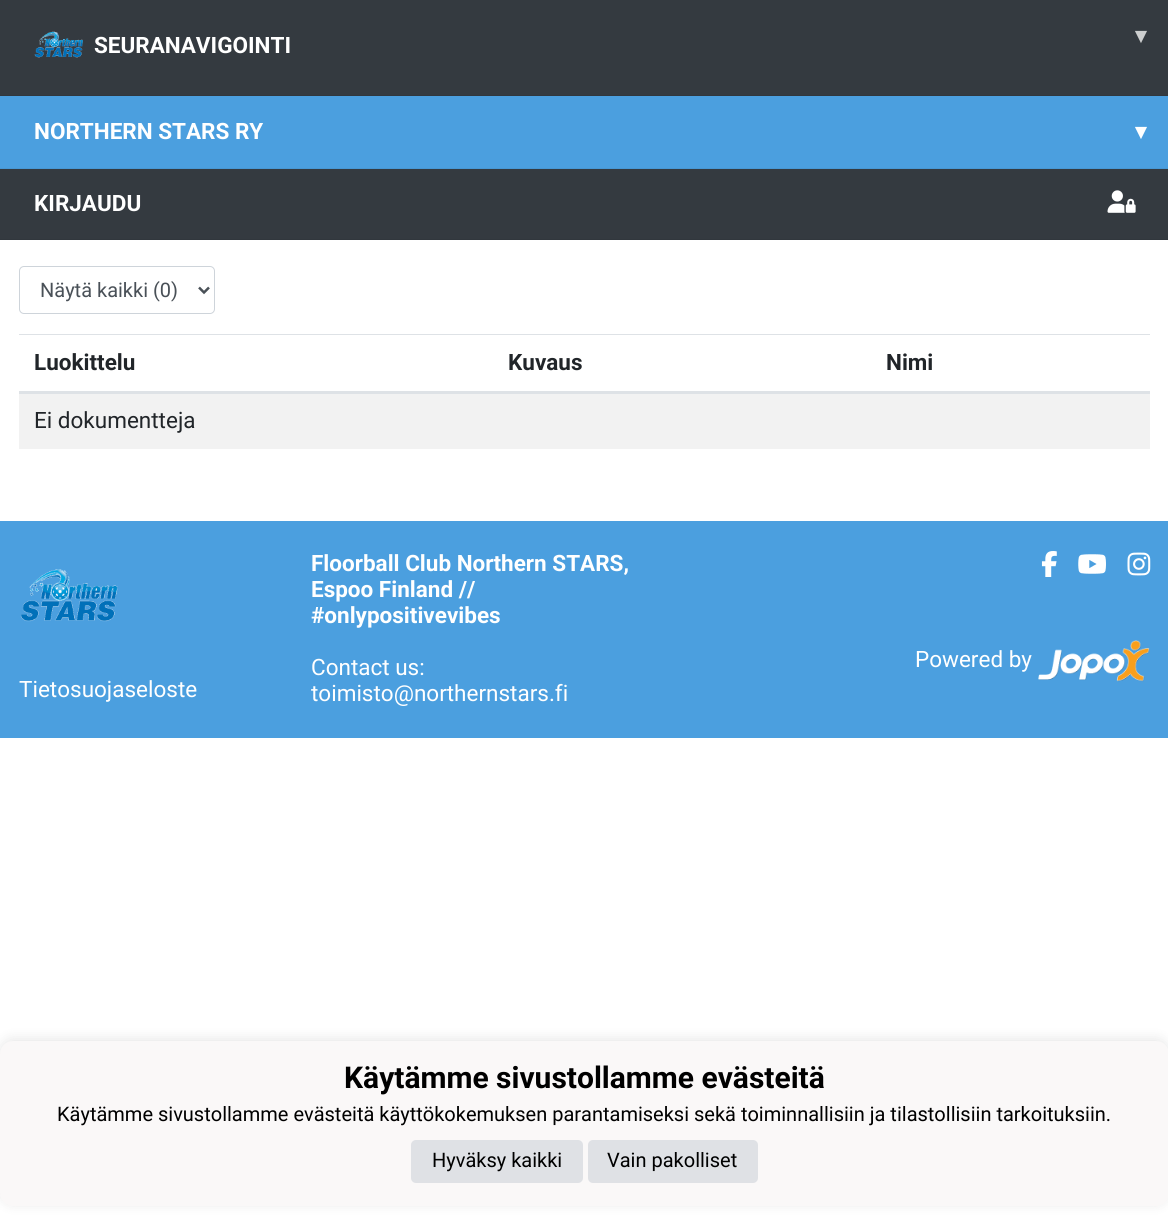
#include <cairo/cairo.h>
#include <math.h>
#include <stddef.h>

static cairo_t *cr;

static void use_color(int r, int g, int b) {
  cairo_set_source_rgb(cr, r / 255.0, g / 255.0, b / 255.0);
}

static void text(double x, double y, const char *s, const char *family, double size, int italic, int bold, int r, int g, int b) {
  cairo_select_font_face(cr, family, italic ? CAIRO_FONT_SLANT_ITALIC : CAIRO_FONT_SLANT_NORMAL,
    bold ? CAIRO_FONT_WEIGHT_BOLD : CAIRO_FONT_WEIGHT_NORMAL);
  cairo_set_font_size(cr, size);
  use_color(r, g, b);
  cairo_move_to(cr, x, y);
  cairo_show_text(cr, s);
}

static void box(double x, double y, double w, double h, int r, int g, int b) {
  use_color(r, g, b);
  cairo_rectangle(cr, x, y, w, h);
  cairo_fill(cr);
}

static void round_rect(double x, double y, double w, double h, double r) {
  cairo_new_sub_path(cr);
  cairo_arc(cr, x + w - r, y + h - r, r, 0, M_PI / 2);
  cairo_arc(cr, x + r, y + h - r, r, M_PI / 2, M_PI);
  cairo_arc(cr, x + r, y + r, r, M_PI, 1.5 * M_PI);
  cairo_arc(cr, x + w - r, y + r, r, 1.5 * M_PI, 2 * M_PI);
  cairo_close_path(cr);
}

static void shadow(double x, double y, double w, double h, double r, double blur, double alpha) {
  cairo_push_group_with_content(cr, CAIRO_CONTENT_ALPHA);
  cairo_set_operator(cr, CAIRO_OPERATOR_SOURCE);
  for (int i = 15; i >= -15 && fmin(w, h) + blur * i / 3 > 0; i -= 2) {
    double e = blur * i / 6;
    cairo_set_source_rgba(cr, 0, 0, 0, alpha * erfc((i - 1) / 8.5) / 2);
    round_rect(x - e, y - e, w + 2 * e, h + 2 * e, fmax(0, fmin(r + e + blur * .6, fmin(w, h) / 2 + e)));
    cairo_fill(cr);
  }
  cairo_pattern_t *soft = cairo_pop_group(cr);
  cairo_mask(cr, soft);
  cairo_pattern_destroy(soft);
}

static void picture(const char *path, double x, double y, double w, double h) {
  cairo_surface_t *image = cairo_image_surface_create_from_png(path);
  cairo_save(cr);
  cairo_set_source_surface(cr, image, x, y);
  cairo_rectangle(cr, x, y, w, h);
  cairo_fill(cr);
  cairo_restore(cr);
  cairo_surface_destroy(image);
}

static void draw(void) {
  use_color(255, 255, 255);
  cairo_paint(cr);
  box(0, 0, 1168, 95, 52, 58, 64);
  box(0, 95, 1168, 1, 49, 55, 61);
  picture("img_01.png", 34, 31, 49, 27);
  box(0, 96, 1168, 72, 75, 159, 223);
  box(0, 168, 1168, 1, 71, 151, 212);
  box(0, 169, 1168, 70, 52, 58, 64);
  box(0, 239, 1168, 1, 49, 55, 61);
  picture("img_02.png", 1107, 190, 29, 23);
  round_rect(19.5, 266.5, 195, 47, 4.5);
  use_color(206, 212, 218);
  cairo_set_line_width(cr, 1);
  cairo_stroke(cr);
  cairo_new_path(cr);
  cairo_move_to(cr, 199, 287.5);
  cairo_line_to(cr, 204, 292.5);
  cairo_line_to(cr, 209, 287.5);
  use_color(73, 80, 87);
  cairo_set_line_width(cr, 2.5);
  cairo_stroke(cr);
  box(19, 334, 1131, 1, 222, 226, 230);
  box(19, 391, 1131, 3, 222, 226, 230);
  box(19, 394, 1131, 55, 242, 242, 242);
  box(0, 521, 1168, 217, 75, 159, 223);
  picture("img_03.png", 1041, 551, 16, 26);
  picture("img_04.png", 1078, 554, 28, 20);
  picture("img_05.png", 1127, 552, 24, 24);
  picture("img_06.png", 1038, 640, 112, 42);
  picture("img_07.png", 20, 569, 98, 53);
  use_color(0, 0, 0);
  shadow(0, 1039, 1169, 165, 13, 6, 0.1);
  use_color(250, 248, 248);
  round_rect(0, 1041, 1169, 165, 13);
  cairo_fill(cr);
  use_color(223, 225, 229);
  round_rect(411, 1140, 172, 43, 5);
  cairo_fill(cr);
  round_rect(588, 1140, 170, 43, 5);
  cairo_fill(cr);
  text(94, 53, "SEURANAVIGOINTI", "Roboto", 22.5, 0, 1, 255, 255, 255);
  text(1135, 43, "▾", "DejaVu Sans", 22.5, 0, 1, 204, 206, 207);
  text(34, 139, "NORTHERN STARS RY", "Roboto", 22.5, 0, 1, 255, 255, 255);
  text(1135, 139, "▾", "DejaVu Sans", 22.5, 0, 1, 255, 255, 255);
  text(34, 211, "KIRJAUDU", "Roboto", 22.5, 0, 1, 255, 255, 255);
  text(40, 297, "Näytä kaikki (0)", "Roboto", 20, 0, 0, 73, 80, 87);
  text(34, 370, "Luokittelu", "Roboto", 22.5, 0, 1, 33, 37, 41);
  text(508, 370, "Kuvaus", "Roboto", 22.5, 0, 1, 33, 37, 41);
  text(886, 370, "Nimi", "Roboto", 22.5, 0, 1, 33, 37, 41);
  text(34, 428, "Ei dokumentteja", "Roboto", 22.5, 0, 0, 33, 37, 41);
  text(311, 571, "Floorball Club Northern STARS,", "Roboto", 22.5, 0, 1, 255, 255, 255);
  text(311, 597, "Espoo Finland //", "Roboto", 22.5, 0, 1, 255, 255, 255);
  text(311, 623, "#onlypositivevibes", "Roboto", 22.5, 0, 1, 255, 255, 255);
  text(311, 675, "Contact us:", "Roboto", 22.5, 0, 0, 255, 255, 255);
  text(311, 701, "toimisto@northernstars.fi", "Roboto", 22.5, 0, 0, 255, 255, 255);
  text(915, 667, "Powered by", "Roboto", 22.5, 0, 0, 255, 255, 255);
  text(19, 697, "Tietosuojaseloste", "Roboto", 22.5, 0, 0, 255, 255, 255);
  text(344, 1088, "Käytämme sivustollamme evästeitä", "Roboto", 30, 0, 1, 0, 0, 0);
  text(57, 1121, "Käytämme sivustollamme evästeitä käyttökokemuksen parantamiseksi sekä toiminnallisiin ja tilastollisiin tarkoituksiin.", "Roboto", 20, 0, 0, 0, 0, 0);
  text(432, 1167, "Hyväksy kaikki", "Roboto", 20, 0, 0, 0, 0, 0);
  text(607, 1167, "Vain pakolliset", "Roboto", 20, 0, 0, 0, 0, 0);
}

int main(void) {
  cairo_surface_t *surface = cairo_image_surface_create(CAIRO_FORMAT_RGB24, 1168, 1218);
  cr = cairo_create(surface);
  cairo_font_options_t *options = cairo_font_options_create();
  cairo_font_options_set_hint_metrics(options, CAIRO_HINT_METRICS_OFF);
  cairo_font_options_set_hint_style(options, CAIRO_HINT_STYLE_NONE);
  cairo_set_font_options(cr, options);
  cairo_set_miter_limit(cr, 4);
  draw();
  cairo_surface_write_to_png(surface, "out.png");
  cairo_font_options_destroy(options);
  cairo_destroy(cr);
  cairo_surface_destroy(surface);
  return 0;
}
